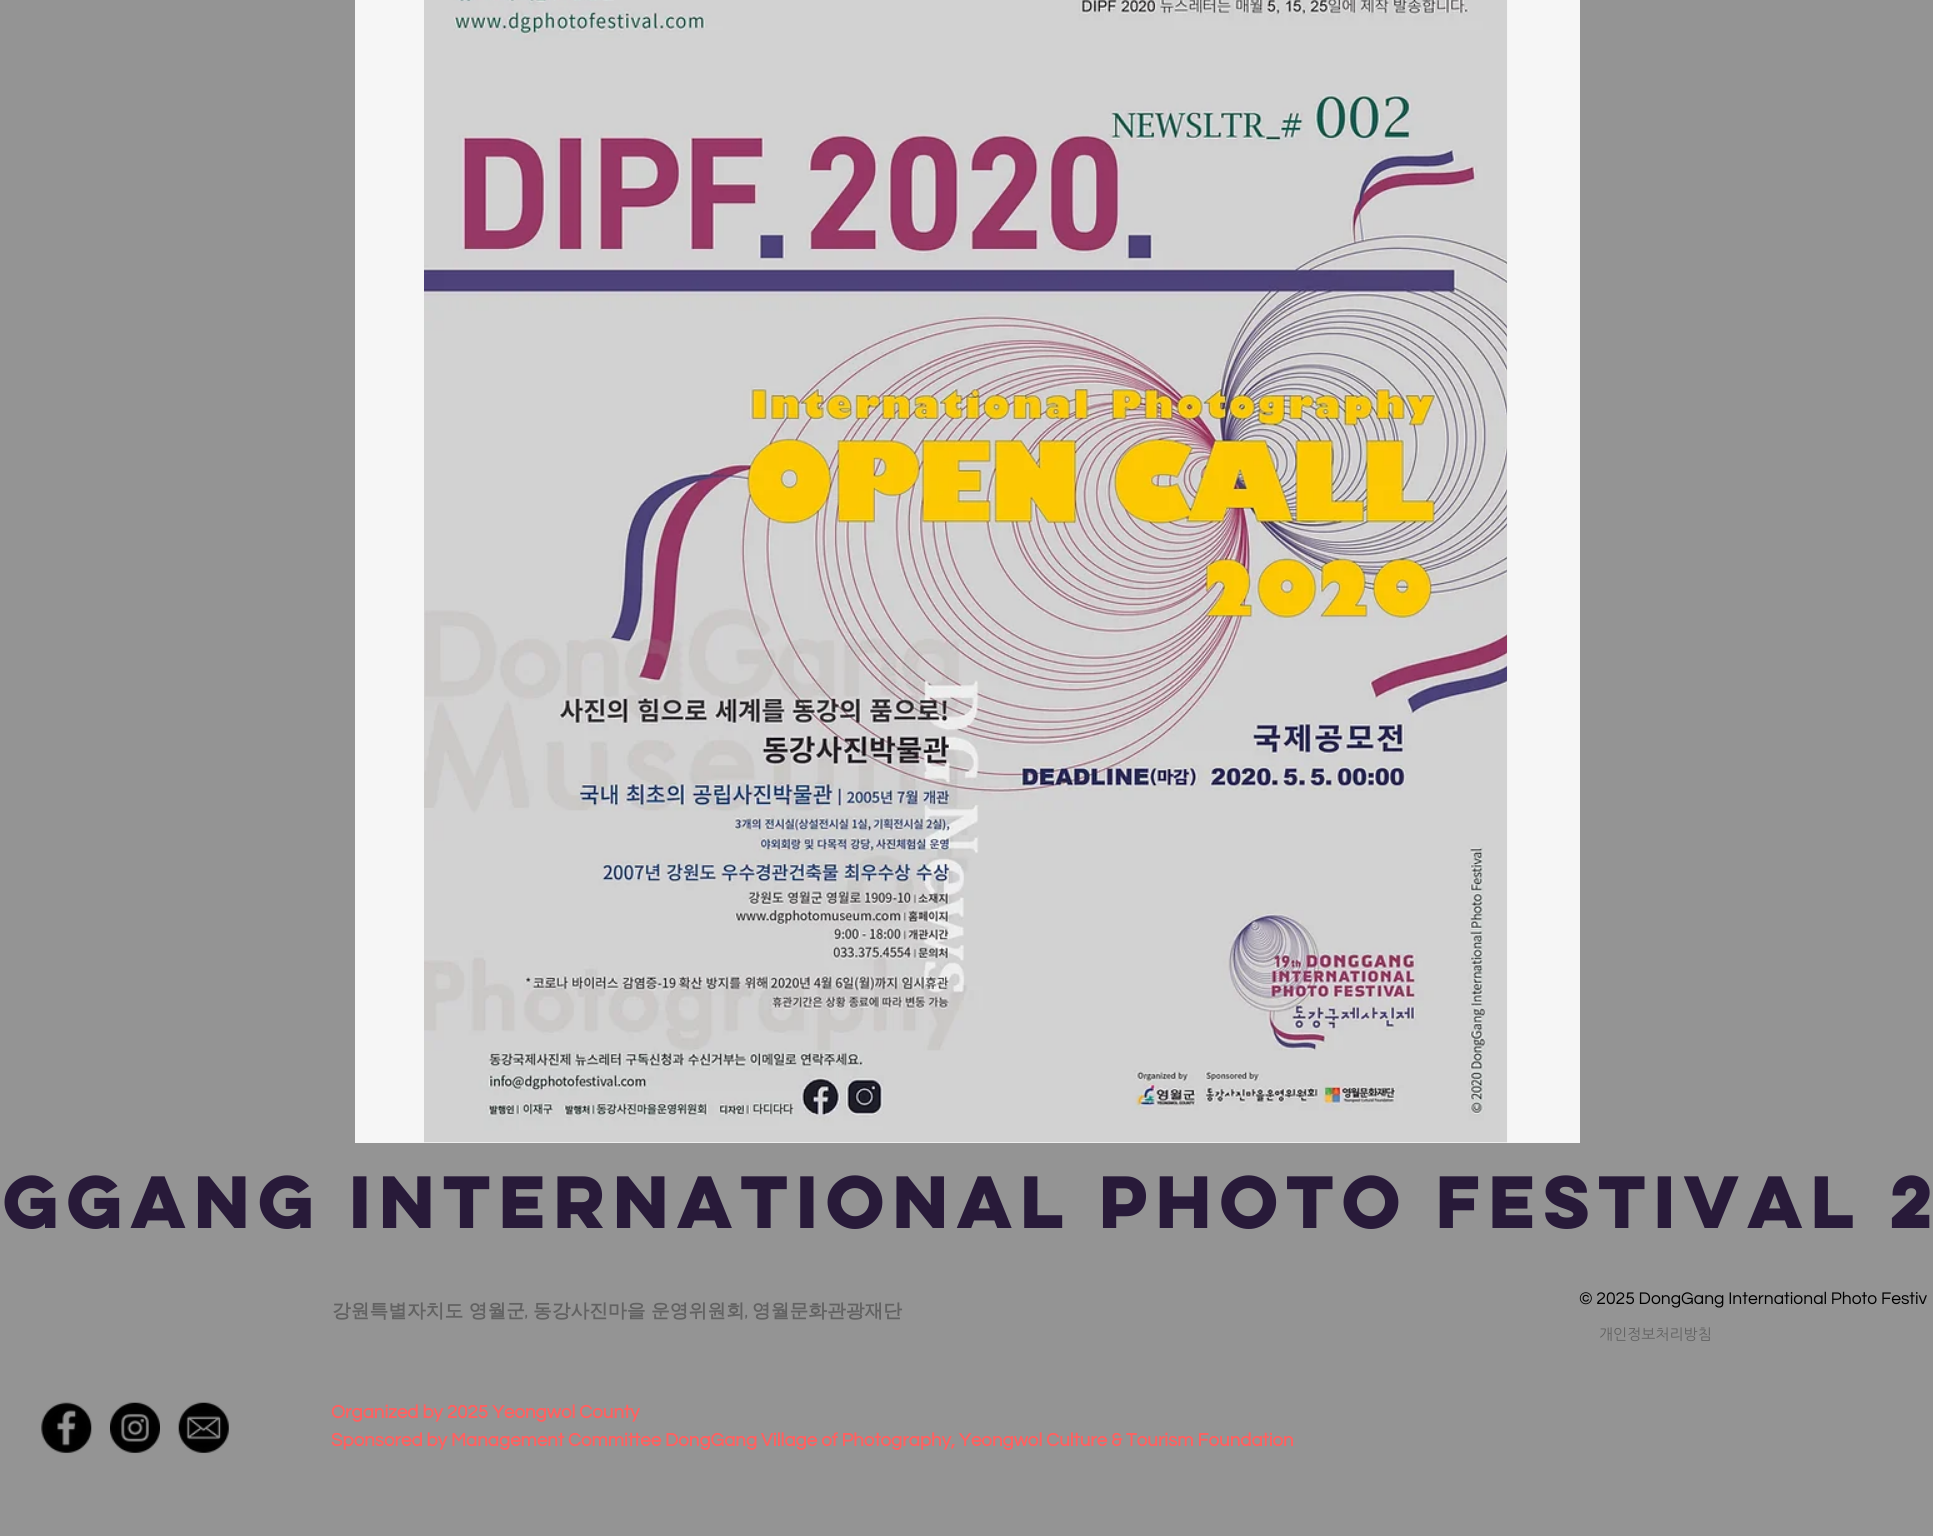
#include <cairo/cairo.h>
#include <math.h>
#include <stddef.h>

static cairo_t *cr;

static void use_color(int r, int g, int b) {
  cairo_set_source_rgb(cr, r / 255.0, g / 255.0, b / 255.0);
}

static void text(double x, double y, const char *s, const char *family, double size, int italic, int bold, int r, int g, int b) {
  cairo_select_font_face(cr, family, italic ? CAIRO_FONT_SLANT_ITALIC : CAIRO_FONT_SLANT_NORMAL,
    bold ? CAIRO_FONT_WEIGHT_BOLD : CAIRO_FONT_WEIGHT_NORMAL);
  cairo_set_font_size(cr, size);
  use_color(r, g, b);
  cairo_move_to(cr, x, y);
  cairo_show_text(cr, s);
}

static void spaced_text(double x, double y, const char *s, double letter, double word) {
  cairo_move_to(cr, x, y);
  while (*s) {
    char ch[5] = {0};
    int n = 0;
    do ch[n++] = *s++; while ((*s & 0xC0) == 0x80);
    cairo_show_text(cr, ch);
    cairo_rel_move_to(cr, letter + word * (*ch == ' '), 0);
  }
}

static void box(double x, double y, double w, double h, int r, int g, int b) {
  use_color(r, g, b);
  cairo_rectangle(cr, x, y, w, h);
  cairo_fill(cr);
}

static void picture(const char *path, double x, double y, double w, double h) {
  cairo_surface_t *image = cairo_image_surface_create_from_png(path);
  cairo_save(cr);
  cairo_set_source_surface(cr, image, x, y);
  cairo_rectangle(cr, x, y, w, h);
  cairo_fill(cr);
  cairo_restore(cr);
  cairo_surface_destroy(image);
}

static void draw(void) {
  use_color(148, 148, 148);
  cairo_paint(cr);
  box(355, 0, 1225, 1143, 246, 246, 246);
  picture("img_01.png", 424, 0, 1084, 1143);
  picture("img_02.png", 41, 1402, 51, 51);
  picture("img_03.png", 110, 1402, 50, 51);
  picture("img_04.png", 178, 1402, 51, 51);
  cairo_select_font_face(cr, "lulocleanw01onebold", CAIRO_FONT_SLANT_NORMAL, CAIRO_FONT_WEIGHT_BOLD);
  cairo_set_font_size(cr, 66.25);
  use_color(40, 26, 57);
  spaced_text(3, 1228, "ggang International photo festival 2", -6.6, 0);
  text(1579, 1304, "© 2025 DongGang International Photo Festiv", "Questrial", 17.5, 0, 0, 0, 0, 0);
  text(332, 1317, "강원특별자치도 영월군", "WenQuanYi Zen Hei", 18.75, 0, 1, 98, 98, 98);
  text(524, 1317, ",", "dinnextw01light", 18.75, 0, 1, 98, 98, 98);
  text(533, 1317, "동강사진마을 운영위원회", "WenQuanYi Zen Hei", 18.75, 0, 1, 98, 98, 98);
  text(744, 1317, ",", "dinnextw01light", 18.75, 0, 1, 98, 98, 98);
  text(752, 1317, "영월문화관광재단", "WenQuanYi Zen Hei", 18.75, 0, 1, 98, 98, 98);
  text(1599, 1339, "개인정보처리방침", "NanumGothic", 15, 0, 0, 98, 98, 98);
  text(331, 1418, "Organized by 2025 Yeongwol County", "Questrial", 18.75, 0, 1, 255, 97, 97);
  text(331, 1446, "Sponsored by Management Committee DongGang Village of Photography, Yeongwol Culture & Tourism Foundation", "Questrial", 18.75, 0, 1, 255, 97, 97);
}

int main(void) {
  cairo_surface_t *surface = cairo_image_surface_create(CAIRO_FORMAT_RGB24, 1933, 1536);
  cr = cairo_create(surface);
  cairo_font_options_t *options = cairo_font_options_create();
  cairo_font_options_set_hint_metrics(options, CAIRO_HINT_METRICS_OFF);
  cairo_font_options_set_hint_style(options, CAIRO_HINT_STYLE_NONE);
  cairo_set_font_options(cr, options);
  cairo_set_miter_limit(cr, 4);
  draw();
  cairo_surface_write_to_png(surface, "out.png");
  cairo_font_options_destroy(options);
  cairo_destroy(cr);
  cairo_surface_destroy(surface);
  return 0;
}
